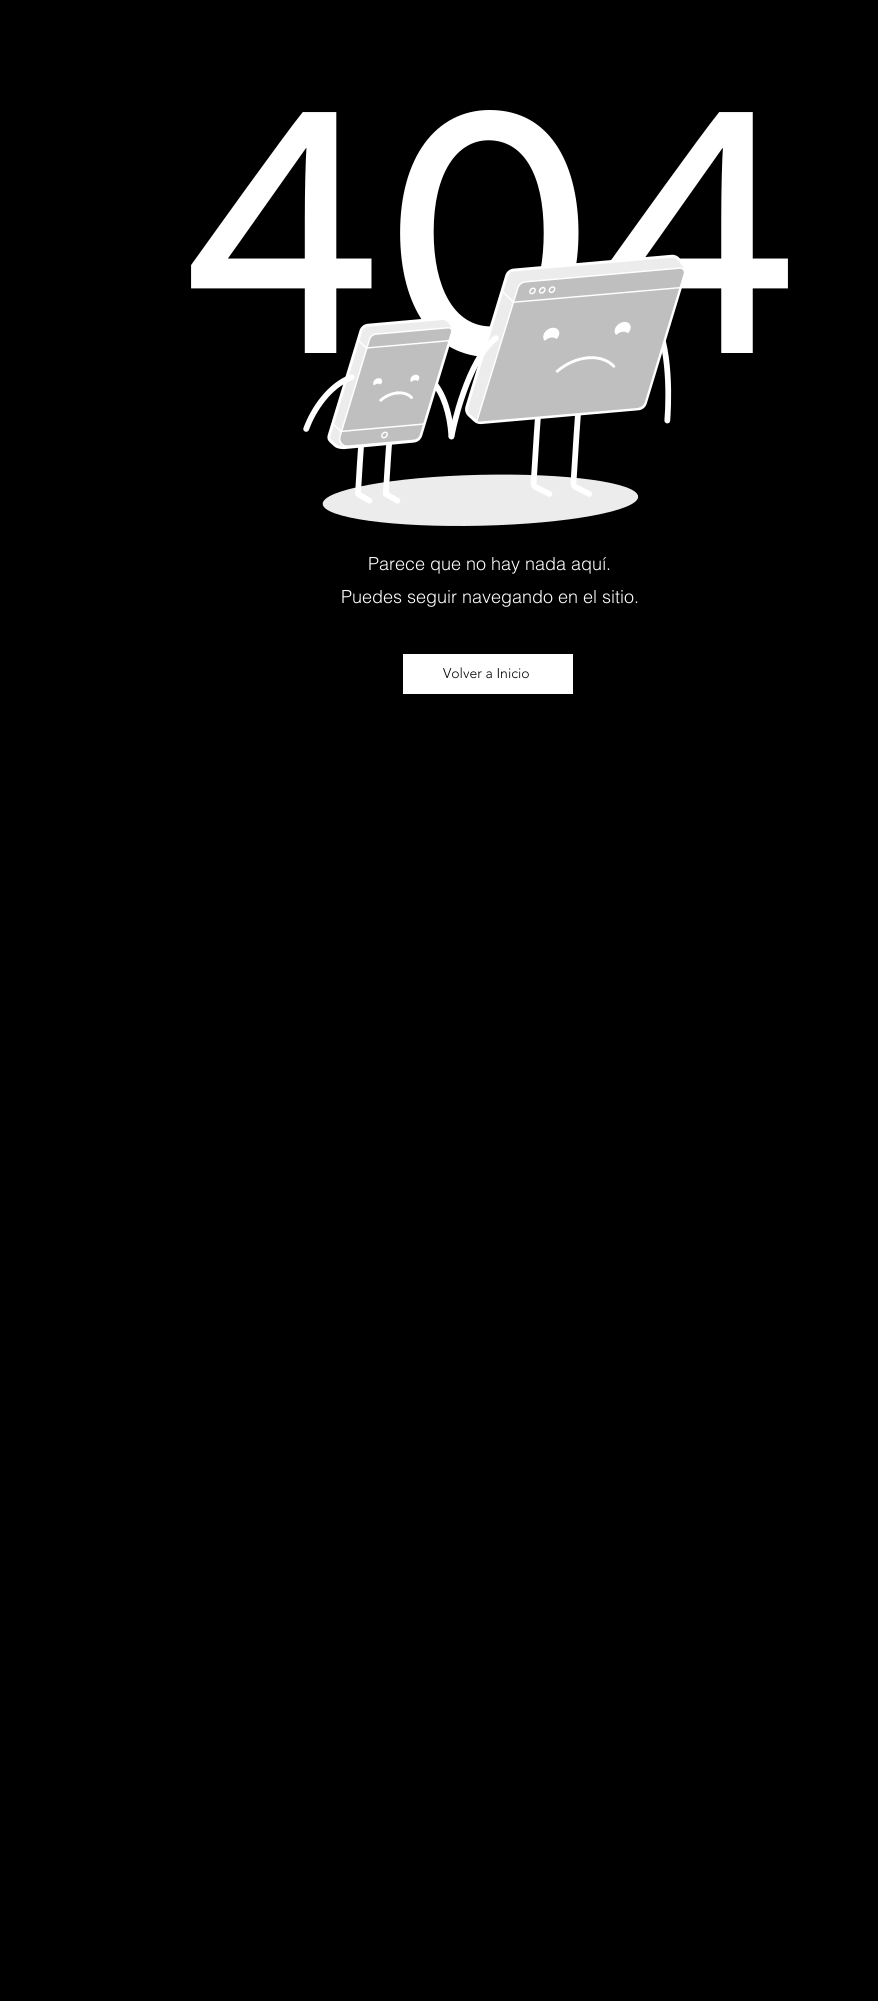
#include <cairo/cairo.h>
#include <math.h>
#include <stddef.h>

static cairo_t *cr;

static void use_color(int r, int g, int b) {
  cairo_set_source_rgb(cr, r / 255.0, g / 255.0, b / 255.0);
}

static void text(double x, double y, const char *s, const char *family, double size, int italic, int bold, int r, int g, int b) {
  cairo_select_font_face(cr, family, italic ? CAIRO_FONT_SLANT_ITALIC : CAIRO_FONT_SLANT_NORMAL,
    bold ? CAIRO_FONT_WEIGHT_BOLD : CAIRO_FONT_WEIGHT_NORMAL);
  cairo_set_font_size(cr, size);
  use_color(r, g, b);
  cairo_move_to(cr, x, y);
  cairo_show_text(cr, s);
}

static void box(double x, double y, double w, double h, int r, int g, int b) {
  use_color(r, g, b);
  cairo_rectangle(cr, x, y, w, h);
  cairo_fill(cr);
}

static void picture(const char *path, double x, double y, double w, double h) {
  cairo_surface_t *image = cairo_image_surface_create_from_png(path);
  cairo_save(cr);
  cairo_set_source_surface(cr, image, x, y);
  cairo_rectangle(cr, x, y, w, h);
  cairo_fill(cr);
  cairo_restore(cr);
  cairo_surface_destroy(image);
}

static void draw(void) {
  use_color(0, 0, 0);
  cairo_paint(cr);
  picture("img_01.png", 191, 110, 597, 416);
  box(403, 654, 170, 40, 255, 255, 255);
  text(368, 570, "Parece que no hay nada aquí.", "helvetica Light", 18, 0, 0, 255, 255, 255);
  text(341, 603, "Puedes seguir navegando en el sitio.", "helvetica Light", 18, 0, 0, 255, 255, 255);
  text(443, 678, "Volver a Inicio", "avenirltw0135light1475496 Light", 14, 0, 0, 0, 0, 0);
}

int main(void) {
  cairo_surface_t *surface = cairo_image_surface_create(CAIRO_FORMAT_RGB24, 878, 2001);
  cr = cairo_create(surface);
  cairo_font_options_t *options = cairo_font_options_create();
  cairo_font_options_set_hint_metrics(options, CAIRO_HINT_METRICS_OFF);
  cairo_font_options_set_hint_style(options, CAIRO_HINT_STYLE_NONE);
  cairo_set_font_options(cr, options);
  cairo_set_miter_limit(cr, 4);
  draw();
  cairo_surface_write_to_png(surface, "out.png");
  cairo_font_options_destroy(options);
  cairo_destroy(cr);
  cairo_surface_destroy(surface);
  return 0;
}
